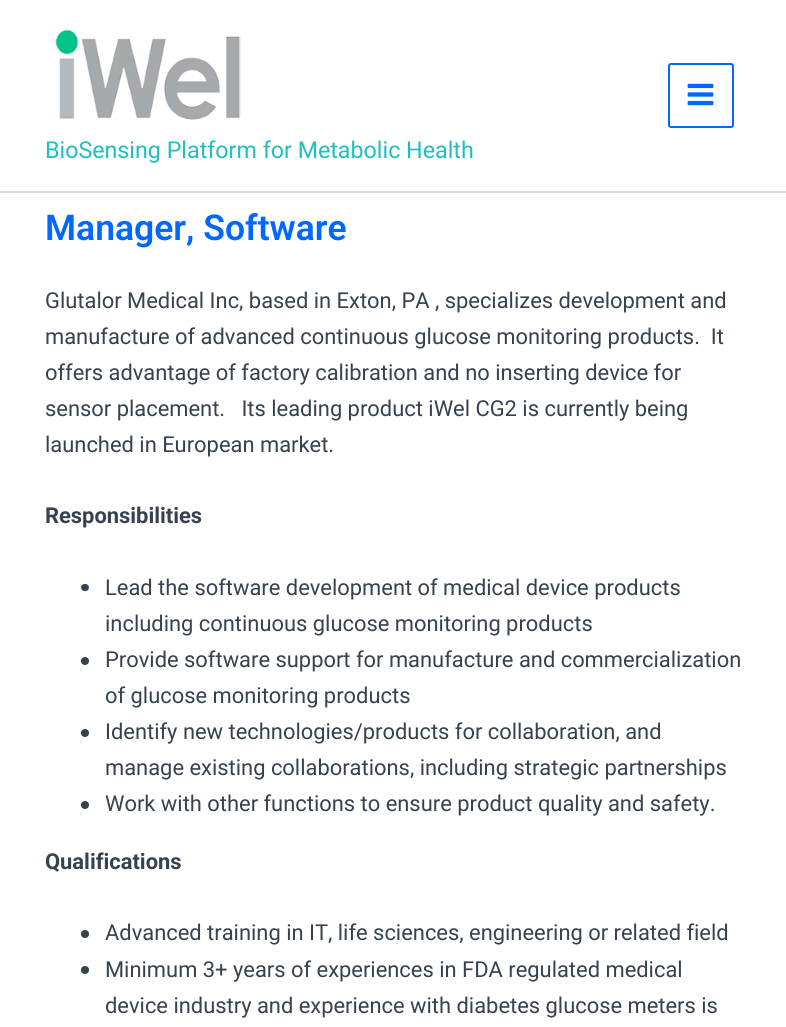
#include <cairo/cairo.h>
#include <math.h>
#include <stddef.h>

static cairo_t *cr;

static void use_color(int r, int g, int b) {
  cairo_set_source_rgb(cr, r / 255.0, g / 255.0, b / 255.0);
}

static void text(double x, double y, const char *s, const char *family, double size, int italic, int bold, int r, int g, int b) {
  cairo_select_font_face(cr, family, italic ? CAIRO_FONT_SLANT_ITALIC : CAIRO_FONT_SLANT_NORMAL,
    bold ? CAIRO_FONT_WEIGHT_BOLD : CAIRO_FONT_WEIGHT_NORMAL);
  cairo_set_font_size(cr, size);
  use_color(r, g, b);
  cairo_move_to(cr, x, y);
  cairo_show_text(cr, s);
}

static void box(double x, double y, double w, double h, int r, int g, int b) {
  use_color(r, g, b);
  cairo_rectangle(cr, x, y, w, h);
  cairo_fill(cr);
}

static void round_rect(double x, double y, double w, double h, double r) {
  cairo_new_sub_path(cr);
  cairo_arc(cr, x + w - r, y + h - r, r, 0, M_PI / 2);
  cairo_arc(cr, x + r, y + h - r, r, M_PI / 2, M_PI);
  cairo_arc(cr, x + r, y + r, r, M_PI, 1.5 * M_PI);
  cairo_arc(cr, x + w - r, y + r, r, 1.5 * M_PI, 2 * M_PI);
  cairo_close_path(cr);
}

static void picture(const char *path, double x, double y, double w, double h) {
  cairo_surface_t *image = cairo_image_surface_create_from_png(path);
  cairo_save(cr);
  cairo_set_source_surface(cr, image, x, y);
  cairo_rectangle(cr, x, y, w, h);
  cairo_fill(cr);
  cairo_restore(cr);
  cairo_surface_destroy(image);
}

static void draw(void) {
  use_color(255, 255, 255);
  cairo_paint(cr);
  box(0, 191, 786, 2, 209, 218, 229);
  round_rect(669, 64, 64, 63, 2);
  use_color(0, 103, 255);
  cairo_stroke(cr);
  picture("img_01.png", 687, 83, 27, 23);
  picture("img_02.png", 55, 29, 186, 91);
  use_color(54, 65, 81);
  round_rect(81, 584, 8, 7, 3.5);
  cairo_fill(cr);
  cairo_arc(cr, 85, 661, 4, 0, 2 * M_PI);
  cairo_fill(cr);
  cairo_arc(cr, 85, 733, 4, 0, 2 * M_PI);
  cairo_fill(cr);
  cairo_arc(cr, 85, 805, 4, 0, 2 * M_PI);
  cairo_fill(cr);
  cairo_arc(cr, 85, 934, 4, 0, 2 * M_PI);
  cairo_fill(cr);
  cairo_arc(cr, 85, 970, 4, 0, 2 * M_PI);
  cairo_fill(cr);
  text(45, 158, "BioSensing Platform for Metabolic Health", "Roboto", 23.25, 0, 0, 29, 191, 193);
  text(45, 240, "Manager, Software", "Roboto SemiBold", 35.5, 0, 0, 0, 103, 255);
  text(45, 308, "Glutalor Medical Inc, based in Exton, PA , specializes development and", "Roboto", 21.9, 0, 0, 54, 65, 81);
  text(45, 344, "manufacture of advanced continuous glucose monitoring products.  It", "Roboto", 21.9, 0, 0, 54, 65, 81);
  text(45, 380, "offers advantage of factory calibration and no inserting device for", "Roboto", 21.9, 0, 0, 54, 65, 81);
  text(45, 416, "sensor placement.   Its leading product iWel CG2 is currently being", "Roboto", 21.9, 0, 0, 54, 65, 81);
  text(45, 452, "launched in European market.", "Roboto", 21.9, 0, 0, 54, 65, 81);
  text(45, 523, "Responsibilities", "Roboto", 21.9, 0, 1, 54, 65, 81);
  text(105, 595, "Lead the software development of medical device products", "Roboto", 21.9, 0, 0, 54, 65, 81);
  text(105, 631, "including continuous glucose monitoring products", "Roboto", 21.9, 0, 0, 54, 65, 81);
  text(105, 667, "Provide software support for manufacture and commercialization", "Roboto", 21.9, 0, 0, 54, 65, 81);
  text(105, 703, "of glucose monitoring products", "Roboto", 21.9, 0, 0, 54, 65, 81);
  text(105, 739, "Identify new technologies/products for collaboration, and", "Roboto", 21.9, 0, 0, 54, 65, 81);
  text(105, 775, "manage existing collaborations, including strategic partnerships", "Roboto", 21.9, 0, 0, 54, 65, 81);
  text(105, 811, "Work with other functions to ensure product quality and safety.", "Roboto", 21.9, 0, 0, 54, 65, 81);
  text(45, 869, "Qualifications", "Roboto", 21.9, 0, 1, 54, 65, 81);
  text(105, 940, "Advanced training in IT, life sciences, engineering or related field", "Roboto", 21.9, 0, 0, 54, 65, 81);
  text(105, 977, "Minimum 3+ years of experiences in FDA regulated medical", "Roboto", 21.9, 0, 0, 54, 65, 81);
  text(105, 1013, "device industry and experience with diabetes glucose meters is", "Roboto", 21.9, 0, 0, 54, 65, 81);
}

int main(void) {
  cairo_surface_t *surface = cairo_image_surface_create(CAIRO_FORMAT_RGB24, 786, 1027);
  cr = cairo_create(surface);
  cairo_font_options_t *options = cairo_font_options_create();
  cairo_font_options_set_hint_metrics(options, CAIRO_HINT_METRICS_OFF);
  cairo_font_options_set_hint_style(options, CAIRO_HINT_STYLE_NONE);
  cairo_set_font_options(cr, options);
  cairo_set_miter_limit(cr, 4);
  draw();
  cairo_surface_write_to_png(surface, "out.png");
  cairo_font_options_destroy(options);
  cairo_destroy(cr);
  cairo_surface_destroy(surface);
  return 0;
}
